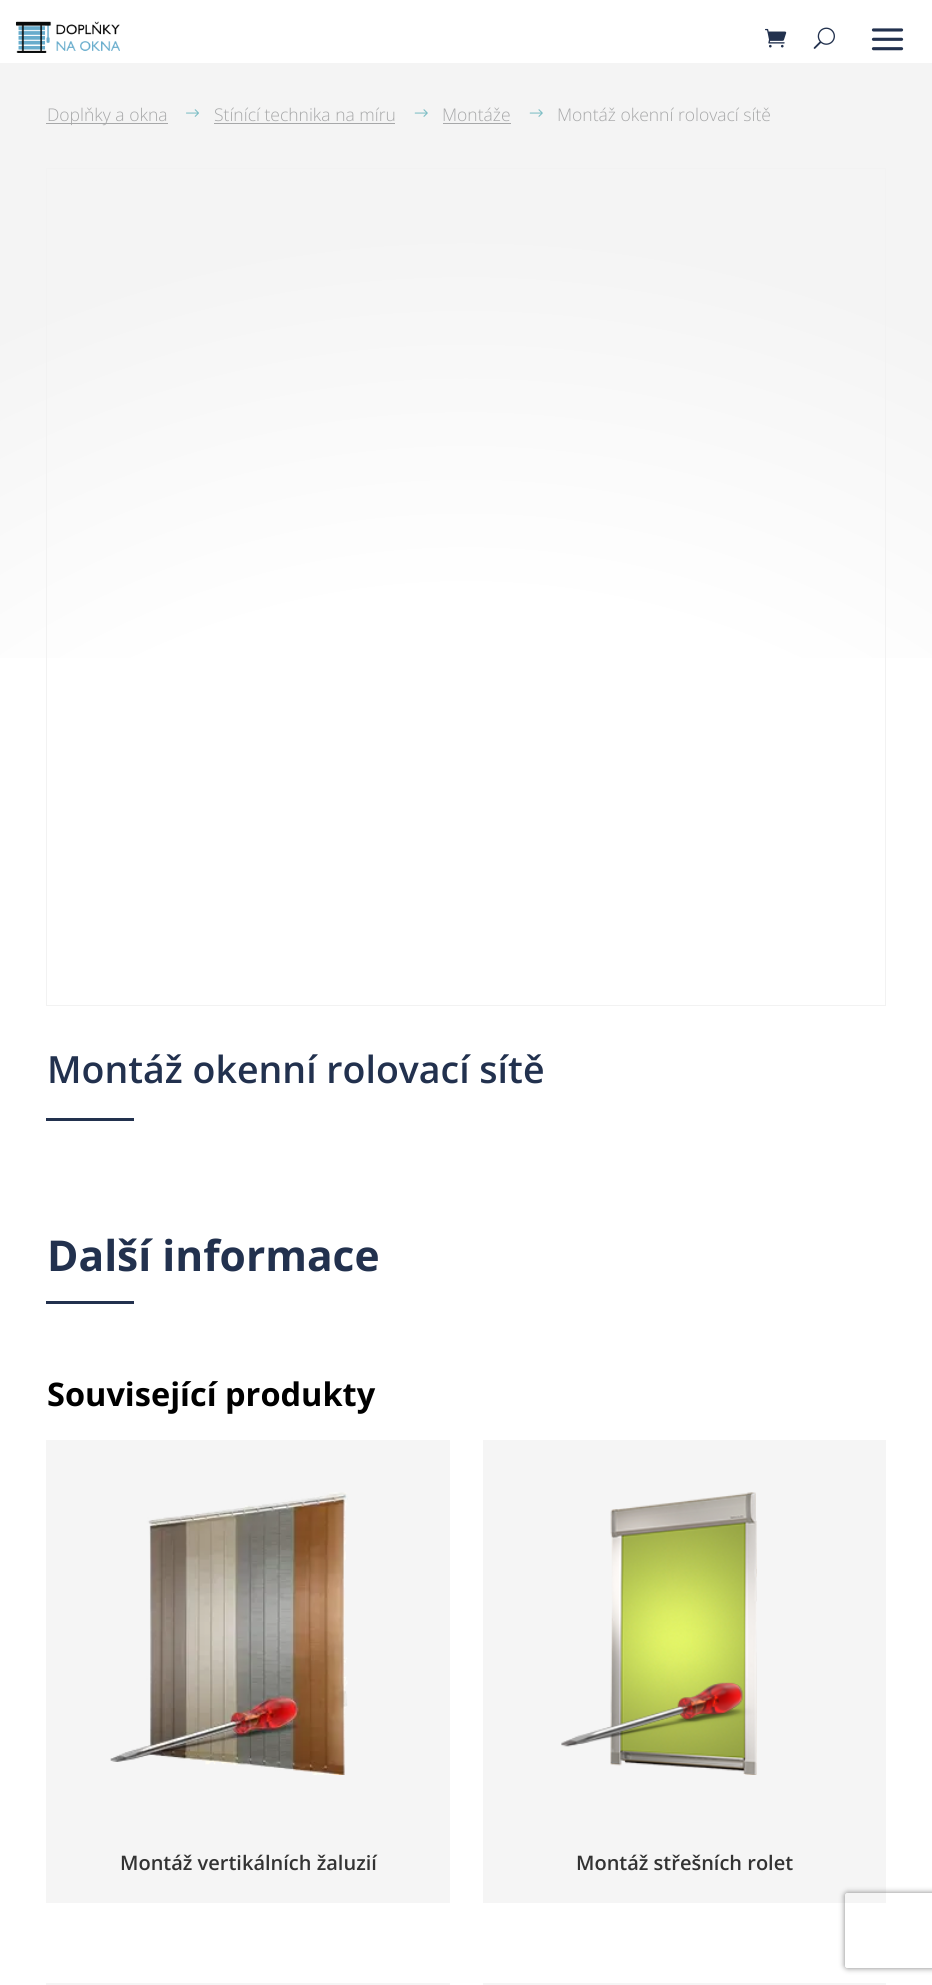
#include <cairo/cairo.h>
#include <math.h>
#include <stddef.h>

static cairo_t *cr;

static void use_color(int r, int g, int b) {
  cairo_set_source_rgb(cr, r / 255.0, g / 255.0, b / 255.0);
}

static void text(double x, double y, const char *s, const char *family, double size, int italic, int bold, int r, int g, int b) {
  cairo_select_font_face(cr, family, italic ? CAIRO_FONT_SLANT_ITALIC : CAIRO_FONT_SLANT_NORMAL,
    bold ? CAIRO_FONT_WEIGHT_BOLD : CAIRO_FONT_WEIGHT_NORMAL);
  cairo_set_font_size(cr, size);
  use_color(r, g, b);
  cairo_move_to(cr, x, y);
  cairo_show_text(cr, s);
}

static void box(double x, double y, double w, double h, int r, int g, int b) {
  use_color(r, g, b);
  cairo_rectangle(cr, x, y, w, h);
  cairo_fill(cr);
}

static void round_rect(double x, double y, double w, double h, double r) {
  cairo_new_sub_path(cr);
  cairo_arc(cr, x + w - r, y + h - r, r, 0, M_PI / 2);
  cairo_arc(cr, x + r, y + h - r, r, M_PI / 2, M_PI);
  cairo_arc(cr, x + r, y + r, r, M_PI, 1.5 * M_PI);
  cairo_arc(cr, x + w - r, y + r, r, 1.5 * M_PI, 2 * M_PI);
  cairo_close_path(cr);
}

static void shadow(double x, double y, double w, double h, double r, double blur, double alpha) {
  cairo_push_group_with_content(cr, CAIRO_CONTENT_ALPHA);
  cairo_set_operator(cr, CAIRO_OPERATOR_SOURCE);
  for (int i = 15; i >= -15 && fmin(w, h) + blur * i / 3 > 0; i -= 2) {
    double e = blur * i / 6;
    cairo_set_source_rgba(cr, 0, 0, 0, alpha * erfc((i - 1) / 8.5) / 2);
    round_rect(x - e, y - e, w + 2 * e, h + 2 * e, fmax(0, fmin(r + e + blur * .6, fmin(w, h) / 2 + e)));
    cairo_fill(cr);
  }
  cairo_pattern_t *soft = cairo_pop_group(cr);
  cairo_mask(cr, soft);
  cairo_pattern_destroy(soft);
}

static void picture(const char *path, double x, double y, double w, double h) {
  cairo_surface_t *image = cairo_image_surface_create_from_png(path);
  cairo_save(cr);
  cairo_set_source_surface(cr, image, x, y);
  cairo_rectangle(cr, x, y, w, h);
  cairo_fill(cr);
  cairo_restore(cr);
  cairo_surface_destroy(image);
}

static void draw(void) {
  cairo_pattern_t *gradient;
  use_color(255, 255, 255);
  cairo_paint(cr);
  picture("img_01.png", 15, 21, 105, 32);
  picture("img_02.png", 765, 28, 22, 20);
  picture("img_03.png", 813, 27, 22, 22);
  picture("img_04.png", 871, 28, 33, 23);
  gradient = cairo_pattern_create_radial(466, 1352, 0, 466, 1352, 1371);
  cairo_pattern_add_color_stop_rgba(gradient, 0.55, 1, 1, 1, 1);
  cairo_pattern_add_color_stop_rgba(gradient, 0.82, 0.957, 0.957, 0.957, 1);
  cairo_set_source(cr, gradient);
  cairo_pattern_destroy(gradient);
  cairo_rectangle(cr, 0, 63, 932, 595);
  cairo_fill(cr);
  box(46, 123, 122, 1, 167, 168, 169);
  picture("img_05.png", 186, 109, 13, 8);
  box(214, 123, 181, 1, 167, 168, 169);
  picture("img_06.png", 414, 109, 14, 8);
  box(443, 123, 68, 1, 167, 168, 169);
  picture("img_06.png", 529, 109, 14, 8);
  cairo_rectangle(cr, 46.5, 168.5, 839, 837);
  use_color(242, 242, 242);
  cairo_set_line_width(cr, 1);
  cairo_stroke(cr);
  box(46, 1118, 88, 3, 34, 49, 78);
  box(46, 1301, 88, 3, 34, 49, 78);
  box(46, 1440, 404, 463, 245, 245, 245);
  picture("img_07.png", 110, 1492, 238, 283);
  box(483, 1440, 403, 463, 245, 245, 245);
  picture("img_08.png", 561, 1492, 196, 283);
  box(46, 1983, 404, 2, 245, 245, 245);
  box(483, 1983, 403, 2, 245, 245, 245);
  cairo_save(cr);
  cairo_set_fill_rule(cr, CAIRO_FILL_RULE_EVEN_ODD);
  cairo_new_path(cr);
  cairo_move_to(cr, 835, 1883);
  cairo_line_to(cr, 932, 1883);
  cairo_line_to(cr, 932, 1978);
  cairo_line_to(cr, 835, 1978);
  cairo_close_path(cr);
  cairo_move_to(cr, 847.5, 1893);
  cairo_line_to(cr, 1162.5, 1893);
  cairo_curve_to(cr, 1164, 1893, 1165, 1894, 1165, 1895.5);
  cairo_line_to(cr, 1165, 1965.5);
  cairo_curve_to(cr, 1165, 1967, 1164, 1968, 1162.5, 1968);
  cairo_line_to(cr, 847.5, 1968);
  cairo_curve_to(cr, 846, 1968, 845, 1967, 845, 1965.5);
  cairo_line_to(cr, 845, 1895.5);
  cairo_curve_to(cr, 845, 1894, 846, 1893, 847.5, 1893);
  cairo_close_path(cr);
  cairo_clip(cr);
  use_color(128, 128, 128);
  shadow(845, 1893, 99, 75, 2.5, 3, 1);
  cairo_restore(cr);
  text(47, 121, "Doplňky a okna", "Open Sans Light", 17.5, 0, 0, 167, 168, 169);
  text(214, 121, "Stínící technika na míru", "Open Sans Light", 17.5, 0, 0, 167, 168, 169);
  text(442, 121, "Montáže", "Open Sans Light", 17.5, 0, 0, 167, 168, 169);
  text(557, 121, "Montáž okenní rolovací sítě", "Open Sans Light", 17.5, 0, 0, 167, 168, 169);
  text(47, 1083, "Montáž okenní rolovací sítě", "Open Sans SemiBold", 37.5, 0, 0, 34, 49, 78);
  text(47, 1271, "Další informace", "Open Sans", 42.5, 0, 1, 34, 49, 78);
  text(47, 1406, "Související produkty", "Open Sans", 32.5, 0, 1, 0, 0, 0);
  text(120, 1870, "Montáž vertikálních žaluzií", "Open Sans SemiBold", 20, 0, 0, 51, 51, 51);
  text(576, 1870, "Montáž střešních rolet", "Open Sans SemiBold", 20, 0, 0, 51, 51, 51);
}

int main(void) {
  cairo_surface_t *surface = cairo_image_surface_create(CAIRO_FORMAT_RGB24, 932, 1985);
  cr = cairo_create(surface);
  cairo_font_options_t *options = cairo_font_options_create();
  cairo_font_options_set_hint_metrics(options, CAIRO_HINT_METRICS_OFF);
  cairo_font_options_set_hint_style(options, CAIRO_HINT_STYLE_NONE);
  cairo_set_font_options(cr, options);
  cairo_set_miter_limit(cr, 4);
  draw();
  cairo_surface_write_to_png(surface, "out.png");
  cairo_font_options_destroy(options);
  cairo_destroy(cr);
  cairo_surface_destroy(surface);
  return 0;
}
